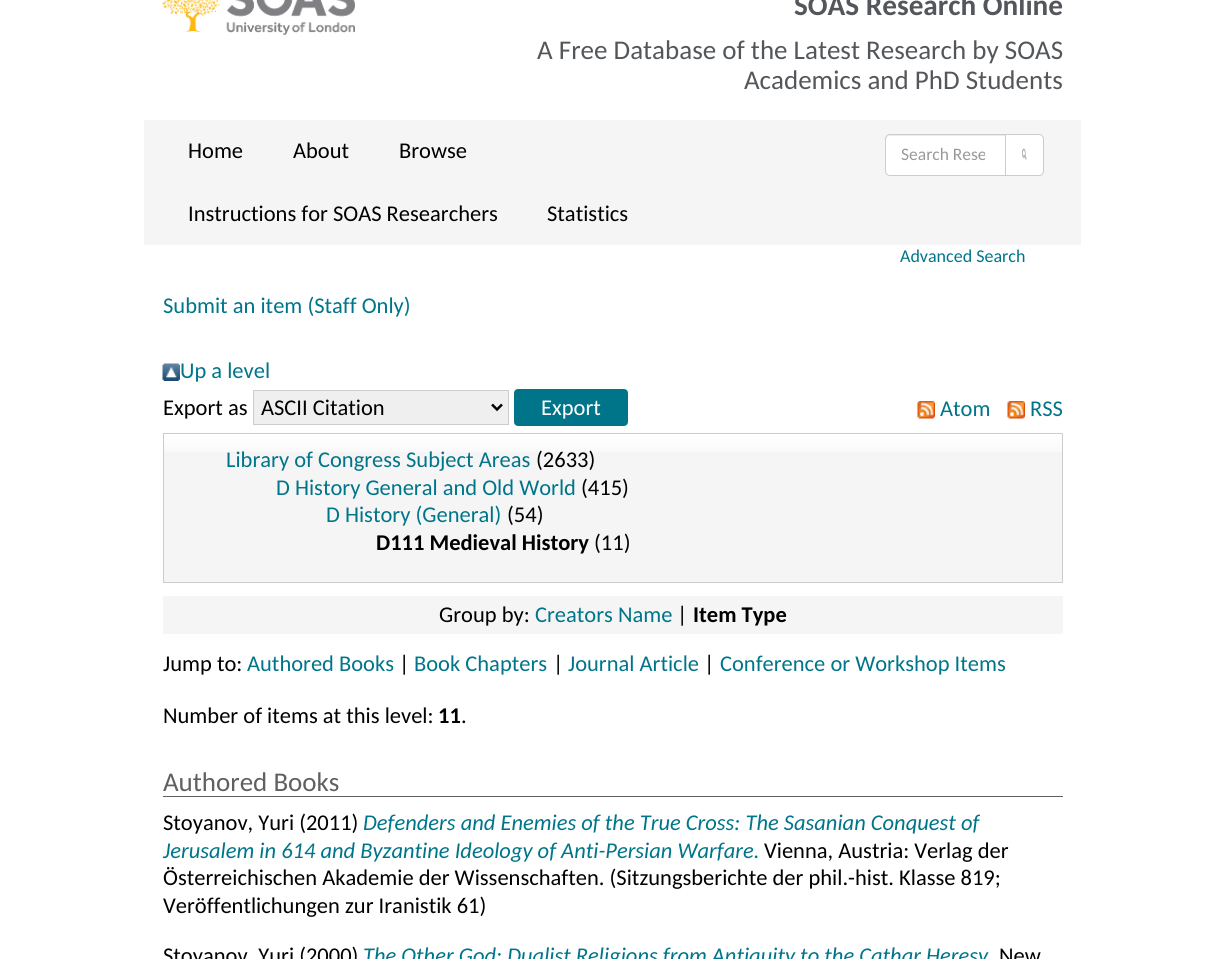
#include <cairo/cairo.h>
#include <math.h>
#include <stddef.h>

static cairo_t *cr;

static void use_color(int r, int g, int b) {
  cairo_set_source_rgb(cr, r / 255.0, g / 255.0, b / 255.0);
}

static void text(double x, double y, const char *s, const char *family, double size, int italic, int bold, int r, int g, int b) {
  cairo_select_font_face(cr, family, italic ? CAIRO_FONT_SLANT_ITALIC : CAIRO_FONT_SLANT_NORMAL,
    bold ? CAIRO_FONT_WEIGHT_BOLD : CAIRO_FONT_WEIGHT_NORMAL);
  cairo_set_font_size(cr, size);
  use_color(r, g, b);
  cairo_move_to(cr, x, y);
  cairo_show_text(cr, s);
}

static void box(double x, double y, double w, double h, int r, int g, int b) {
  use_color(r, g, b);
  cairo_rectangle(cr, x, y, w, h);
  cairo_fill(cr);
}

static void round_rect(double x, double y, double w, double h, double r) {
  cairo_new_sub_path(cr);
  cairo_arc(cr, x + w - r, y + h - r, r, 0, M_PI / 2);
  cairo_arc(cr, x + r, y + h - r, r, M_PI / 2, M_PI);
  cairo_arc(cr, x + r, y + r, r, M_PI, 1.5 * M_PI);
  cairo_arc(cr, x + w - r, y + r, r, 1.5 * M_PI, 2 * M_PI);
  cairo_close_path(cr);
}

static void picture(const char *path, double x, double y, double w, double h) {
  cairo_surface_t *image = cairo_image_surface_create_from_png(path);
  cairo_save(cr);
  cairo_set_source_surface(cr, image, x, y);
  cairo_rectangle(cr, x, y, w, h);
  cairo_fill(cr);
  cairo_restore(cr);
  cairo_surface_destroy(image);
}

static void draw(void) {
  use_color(255, 255, 255);
  cairo_paint(cr);
  picture("img_01.png", 162, 0, 193, 35);
  box(144, 120, 937, 125, 245, 245, 245);
  use_color(255, 255, 255);
  cairo_new_path(cr);
  cairo_move_to(cr, 890, 134);
  cairo_line_to(cr, 1006, 134);
  cairo_line_to(cr, 1006, 176);
  cairo_line_to(cr, 890, 176);
  cairo_curve_to(cr, 887, 176, 885, 174, 885, 171);
  cairo_line_to(cr, 885, 139);
  cairo_curve_to(cr, 885, 136, 887, 134, 890, 134);
  cairo_close_path(cr);
  cairo_fill(cr);
  use_color(236, 236, 236);
  cairo_new_path(cr);
  cairo_move_to(cr, 890, 136);
  cairo_line_to(cr, 1005, 136);
  cairo_line_to(cr, 1005, 135);
  cairo_line_to(cr, 890, 135);
  cairo_curve_to(cr, 888, 135, 886, 137, 886, 139);
  cairo_line_to(cr, 886, 140);
  cairo_curve_to(cr, 886, 138, 888, 136, 890, 136);
  cairo_close_path(cr);
  cairo_fill(cr);
  cairo_new_path(cr);
  cairo_move_to(cr, 890, 134.5);
  cairo_line_to(cr, 1005.5, 134.5);
  cairo_line_to(cr, 1005.5, 175.5);
  cairo_line_to(cr, 890, 175.5);
  cairo_curve_to(cr, 887.5, 175.5, 885.5, 173.5, 885.5, 171);
  cairo_line_to(cr, 885.5, 139);
  cairo_curve_to(cr, 885.5, 136.5, 887.5, 134.5, 890, 134.5);
  cairo_close_path(cr);
  use_color(204, 204, 204);
  cairo_set_line_width(cr, 1);
  cairo_stroke(cr);
  use_color(255, 255, 255);
  cairo_new_path(cr);
  cairo_move_to(cr, 1005.5, 134.5);
  cairo_line_to(cr, 1039, 134.5);
  cairo_curve_to(cr, 1041.5, 134.5, 1043.5, 136.5, 1043.5, 139);
  cairo_line_to(cr, 1043.5, 171);
  cairo_curve_to(cr, 1043.5, 173.5, 1041.5, 175.5, 1039, 175.5);
  cairo_line_to(cr, 1005.5, 175.5);
  cairo_close_path(cr);
  cairo_fill_preserve(cr);
  use_color(204, 204, 204);
  cairo_stroke(cr);
  picture("img_02.png", 1022, 148, 5, 12);
  picture("img_03.png", 162, 363, 18, 18);
  use_color(239, 239, 239);
  cairo_rectangle(cr, 253.5, 390.5, 255, 34);
  cairo_fill_preserve(cr);
  use_color(204, 204, 204);
  cairo_stroke(cr);
  cairo_new_path(cr);
  cairo_move_to(cr, 492, 404.5);
  cairo_line_to(cr, 497, 409.5);
  cairo_line_to(cr, 502, 404.5);
  use_color(0, 0, 0);
  cairo_set_line_width(cr, 2.5);
  cairo_stroke(cr);
  use_color(0, 117, 138);
  round_rect(515.5, 390.5, 111, 34, 2.5);
  cairo_fill_preserve(cr);
  cairo_set_line_width(cr, 3);
  cairo_stroke(cr);
  picture("img_04.png", 917, 401, 18, 18);
  picture("img_05.png", 1007, 401, 18, 18);
  box(164, 434, 898, 148, 245, 245, 245);
  picture("img_06.png", 164, 434, 898, 18);
  cairo_rectangle(cr, 163.5, 433.5, 899, 149);
  use_color(204, 204, 204);
  cairo_set_line_width(cr, 1);
  cairo_stroke(cr);
  box(163, 596, 900, 38, 245, 245, 245);
  box(163, 796, 900, 1, 96, 96, 96);
  text(794, 15, "SOAS Research Online", "Carlito", 29.25, 0, 1, 83, 86, 90);
  text(537, 59, "A Free Database of the Latest Research by SOAS", "Carlito", 27, 0, 0, 83, 86, 90);
  text(744, 89, "Academics and PhD Students", "Carlito", 27, 0, 0, 83, 86, 90);
  text(188, 158, "Home", "Carlito", 22.5, 0, 0, 0, 0, 0);
  text(293, 158, "About", "Carlito", 22.5, 0, 0, 0, 0, 0);
  text(399, 158, "Browse", "Carlito", 22.5, 0, 0, 0, 0, 0);
  text(188, 221, "Instructions for SOAS Researchers", "Carlito", 22.5, 0, 0, 0, 0, 0);
  text(547, 221, "Statistics", "Carlito", 22.5, 0, 0, 0, 0, 0);
  cairo_save(cr);
  cairo_rectangle(cr, 901, 144, 84, 21);
  cairo_clip(cr);
  text(901, 160, "Search Rese", "Carlito", 17.5, 0, 0, 153, 153, 153);
  cairo_restore(cr);
  text(900, 262, "Advanced Search", "Carlito", 18, 0, 0, 0, 117, 138);
  text(163, 313, "Submit an item (Staff Only)", "Carlito", 22.5, 0, 0, 0, 117, 138);
  text(180, 378, "Up a level", "Carlito", 22.5, 0, 0, 0, 117, 138);
  text(163, 415, "Export as", "Carlito", 22.5, 0, 0, 0, 0, 0);
  text(261, 415, "ASCII Citation", "Carlito", 22.5, 0, 0, 0, 0, 0);
  text(541, 415, "Export", "Carlito", 22.5, 0, 0, 255, 255, 255);
  text(940, 416, "Atom", "Carlito", 22.5, 0, 0, 0, 117, 138);
  text(1030, 416, "RSS", "Carlito", 22.5, 0, 0, 0, 117, 138);
  text(226, 467, "Library of Congress Subject Areas", "Carlito", 22.5, 0, 0, 0, 117, 138);
  text(536, 467, "(2633)", "Carlito", 22.5, 0, 0, 0, 0, 0);
  text(276, 495, "D History General and Old World", "Carlito", 22.5, 0, 0, 0, 117, 138);
  text(581, 495, "(415)", "Carlito", 22.5, 0, 0, 0, 0, 0);
  text(326, 522, "D History (General)", "Carlito", 22.5, 0, 0, 0, 117, 138);
  text(507, 522, "(54)", "Carlito", 22.5, 0, 0, 0, 0, 0);
  text(376, 550, "D111 Medieval History", "Carlito", 22.5, 0, 1, 0, 0, 0);
  text(594, 550, "(11)", "Carlito", 22.5, 0, 0, 0, 0, 0);
  text(439, 622, "Group by:", "Carlito", 22.5, 0, 0, 0, 0, 0);
  text(535, 622, "Creators Name", "Carlito", 22.5, 0, 0, 0, 117, 138);
  text(677, 622, "|", "Carlito", 22.5, 0, 0, 0, 0, 0);
  text(693, 622, "Item Type", "Carlito", 22.5, 0, 1, 0, 0, 0);
  text(163, 671, "Jump to:", "Carlito", 22.5, 0, 0, 0, 0, 0);
  text(247, 671, "Authored Books", "Carlito", 22.5, 0, 0, 0, 117, 138);
  text(399, 671, "|", "Carlito", 22.5, 0, 0, 0, 0, 0);
  text(414, 671, "Book Chapters", "Carlito", 22.5, 0, 0, 0, 117, 138);
  text(553, 671, "|", "Carlito", 22.5, 0, 0, 0, 0, 0);
  text(568, 671, "Journal Article", "Carlito", 22.5, 0, 0, 0, 117, 138);
  text(704, 671, "|", "Carlito", 22.5, 0, 0, 0, 0, 0);
  text(720, 671, "Conference or Workshop Items", "Carlito", 22.5, 0, 0, 0, 117, 138);
  text(163, 723, "Number of items at this level:", "Carlito", 22.5, 0, 0, 0, 0, 0);
  text(438, 723, "11", "Carlito", 22.5, 0, 1, 0, 0, 0);
  text(461, 723, ".", "Carlito", 22.5, 0, 0, 0, 0, 0);
  text(163, 791, "Authored Books", "Carlito", 27, 0, 0, 96, 96, 96);
  text(163, 830, "Stoyanov, Yuri (2011)", "Carlito", 22.5, 0, 0, 0, 0, 0);
  text(363, 830, "Defenders and Enemies of the True Cross: The Sasanian Conquest of", "Carlito", 22.5, 1, 0, 0, 117, 138);
  text(163, 858, "Jerusalem in 614 and Byzantine Ideology of Anti-Persian Warfare.", "Carlito", 22.5, 1, 0, 0, 117, 138);
  text(764, 858, "Vienna, Austria: Verlag der", "Carlito", 22.5, 0, 0, 0, 0, 0);
  text(163, 885, "Österreichischen Akademie der Wissenschaften. (Sitzungsberichte der phil.-hist. Klasse 819;", "Carlito", 22.5, 0, 0, 0, 0, 0);
  text(163, 913, "Veröffentlichungen zur Iranistik 61)", "Carlito", 22.5, 0, 0, 0, 0, 0);
  text(163, 963, "Stoyanov, Yuri (2000)", "Carlito", 22.5, 0, 0, 0, 0, 0);
  text(363, 963, "The Other God: Dualist Religions from Antiquity to the Cathar Heresy.", "Carlito", 22.5, 1, 0, 0, 117, 138);
  text(999, 963, "New", "Carlito", 22.5, 0, 0, 0, 0, 0);
}

int main(void) {
  cairo_surface_t *surface = cairo_image_surface_create(CAIRO_FORMAT_RGB24, 1225, 959);
  cr = cairo_create(surface);
  cairo_font_options_t *options = cairo_font_options_create();
  cairo_font_options_set_hint_metrics(options, CAIRO_HINT_METRICS_OFF);
  cairo_font_options_set_hint_style(options, CAIRO_HINT_STYLE_NONE);
  cairo_set_font_options(cr, options);
  cairo_set_miter_limit(cr, 4);
  draw();
  cairo_surface_write_to_png(surface, "out.png");
  cairo_font_options_destroy(options);
  cairo_destroy(cr);
  cairo_surface_destroy(surface);
  return 0;
}
